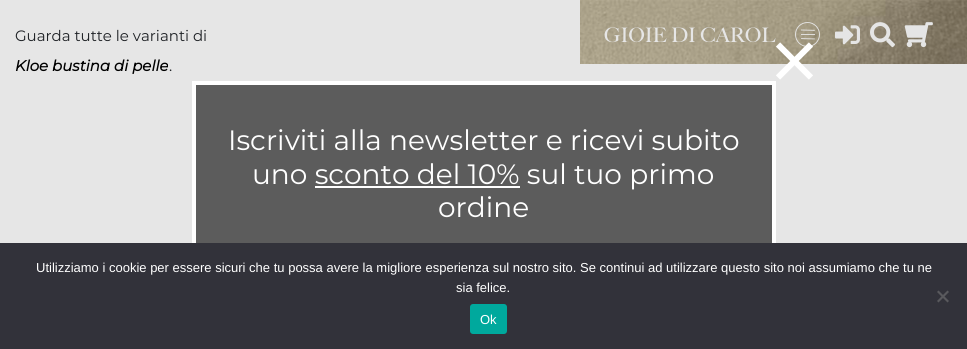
#include <cairo/cairo.h>
#include <math.h>
#include <stddef.h>

static cairo_t *cr;

static void use_color(int r, int g, int b) {
  cairo_set_source_rgb(cr, r / 255.0, g / 255.0, b / 255.0);
}

static void text(double x, double y, const char *s, const char *family, double size, int italic, int bold, int r, int g, int b) {
  cairo_select_font_face(cr, family, italic ? CAIRO_FONT_SLANT_ITALIC : CAIRO_FONT_SLANT_NORMAL,
    bold ? CAIRO_FONT_WEIGHT_BOLD : CAIRO_FONT_WEIGHT_NORMAL);
  cairo_set_font_size(cr, size);
  use_color(r, g, b);
  cairo_move_to(cr, x, y);
  cairo_show_text(cr, s);
}

static void box(double x, double y, double w, double h, int r, int g, int b) {
  use_color(r, g, b);
  cairo_rectangle(cr, x, y, w, h);
  cairo_fill(cr);
}

static void round_rect(double x, double y, double w, double h, double r) {
  cairo_new_sub_path(cr);
  cairo_arc(cr, x + w - r, y + h - r, r, 0, M_PI / 2);
  cairo_arc(cr, x + r, y + h - r, r, M_PI / 2, M_PI);
  cairo_arc(cr, x + r, y + r, r, M_PI, 1.5 * M_PI);
  cairo_arc(cr, x + w - r, y + r, r, 1.5 * M_PI, 2 * M_PI);
  cairo_close_path(cr);
}

static void picture(const char *path, double x, double y, double w, double h) {
  cairo_surface_t *image = cairo_image_surface_create_from_png(path);
  cairo_save(cr);
  cairo_set_source_surface(cr, image, x, y);
  cairo_rectangle(cr, x, y, w, h);
  cairo_fill(cr);
  cairo_restore(cr);
  cairo_surface_destroy(image);
}

static void draw(void) {
  use_color(230, 230, 230);
  cairo_paint(cr);
  picture("img_01.png", 580, 0, 387, 64);
  picture("img_02.png", 795, 22, 25, 25);
  picture("img_03.png", 835, 25, 25, 20);
  picture("img_04.png", 870, 22, 25, 26);
  picture("img_05.png", 904, 22, 29, 26);
  cairo_set_source_rgba(cr, 0, 0, 0, 0.6);
  cairo_rectangle(cr, 194, 83, 580, 184);
  cairo_fill_preserve(cr);
  use_color(255, 255, 255);
  cairo_set_line_width(cr, 4);
  cairo_stroke(cr);
  cairo_new_path(cr);
  cairo_move_to(cr, 778, 77.5);
  cairo_line_to(cr, 811, 44.5);
  cairo_move_to(cr, 778, 44.5);
  cairo_line_to(cr, 811, 77.5);
  cairo_set_line_width(cr, 6);
  cairo_stroke(cr);
  box(315, 186, 205, 2, 255, 255, 255);
  box(0, 243, 967, 106, 50, 50, 58);
  use_color(89, 89, 93);
  cairo_new_path(cr);
  cairo_move_to(cr, 947.5, 290.5);
  cairo_line_to(cr, 949, 292);
  cairo_line_to(cr, 938.5, 302.5);
  cairo_line_to(cr, 937, 301);
  cairo_close_path(cr);
  cairo_fill(cr);
  cairo_new_path(cr);
  cairo_move_to(cr, 937, 292);
  cairo_line_to(cr, 938.5, 290.5);
  cairo_line_to(cr, 949, 301);
  cairo_line_to(cr, 947.5, 302.5);
  cairo_close_path(cr);
  cairo_fill(cr);
  use_color(0, 169, 157);
  round_rect(470, 304, 37, 30, 3);
  cairo_fill(cr);
  text(15, 41, "Guarda tutte le varianti di", "Montserrat", 15, 0, 0, 30, 33, 37);
  text(15, 71, "Kloe bustina di pelle", "Montserrat", 15, 1, 1, 0, 0, 0);
  text(169, 71, ".", "Montserrat", 15, 0, 0, 30, 33, 37);
  text(604, 42, "GIOIE DI CAROL", "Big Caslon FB", 20, 0, 0, 230, 230, 230);
  text(228, 150, "Iscriviti alla newsletter e ricevi subito", "Montserrat", 28, 0, 0, 255, 255, 255);
  text(252, 184, "uno sconto del 10% sul tuo primo", "Montserrat", 28, 0, 0, 255, 255, 255);
  text(438, 217, "ordine", "Montserrat", 28, 0, 0, 255, 255, 255);
  text(36, 272, "Utilizziamo i cookie per essere sicuri che tu possa avere la migliore esperienza sul nostro sito. Se continui ad utilizzare questo sito noi assumiamo che tu ne", "Liberation Sans", 13, 0, 0, 255, 255, 255);
  text(456, 292, "sia felice.", "Liberation Sans", 13, 0, 0, 255, 255, 255);
  text(480, 324, "Ok", "Liberation Sans", 13, 0, 0, 255, 255, 255);
}

int main(void) {
  cairo_surface_t *surface = cairo_image_surface_create(CAIRO_FORMAT_RGB24, 967, 349);
  cr = cairo_create(surface);
  cairo_font_options_t *options = cairo_font_options_create();
  cairo_font_options_set_hint_metrics(options, CAIRO_HINT_METRICS_OFF);
  cairo_font_options_set_hint_style(options, CAIRO_HINT_STYLE_NONE);
  cairo_set_font_options(cr, options);
  cairo_set_miter_limit(cr, 4);
  draw();
  cairo_surface_write_to_png(surface, "out.png");
  cairo_font_options_destroy(options);
  cairo_destroy(cr);
  cairo_surface_destroy(surface);
  return 0;
}
